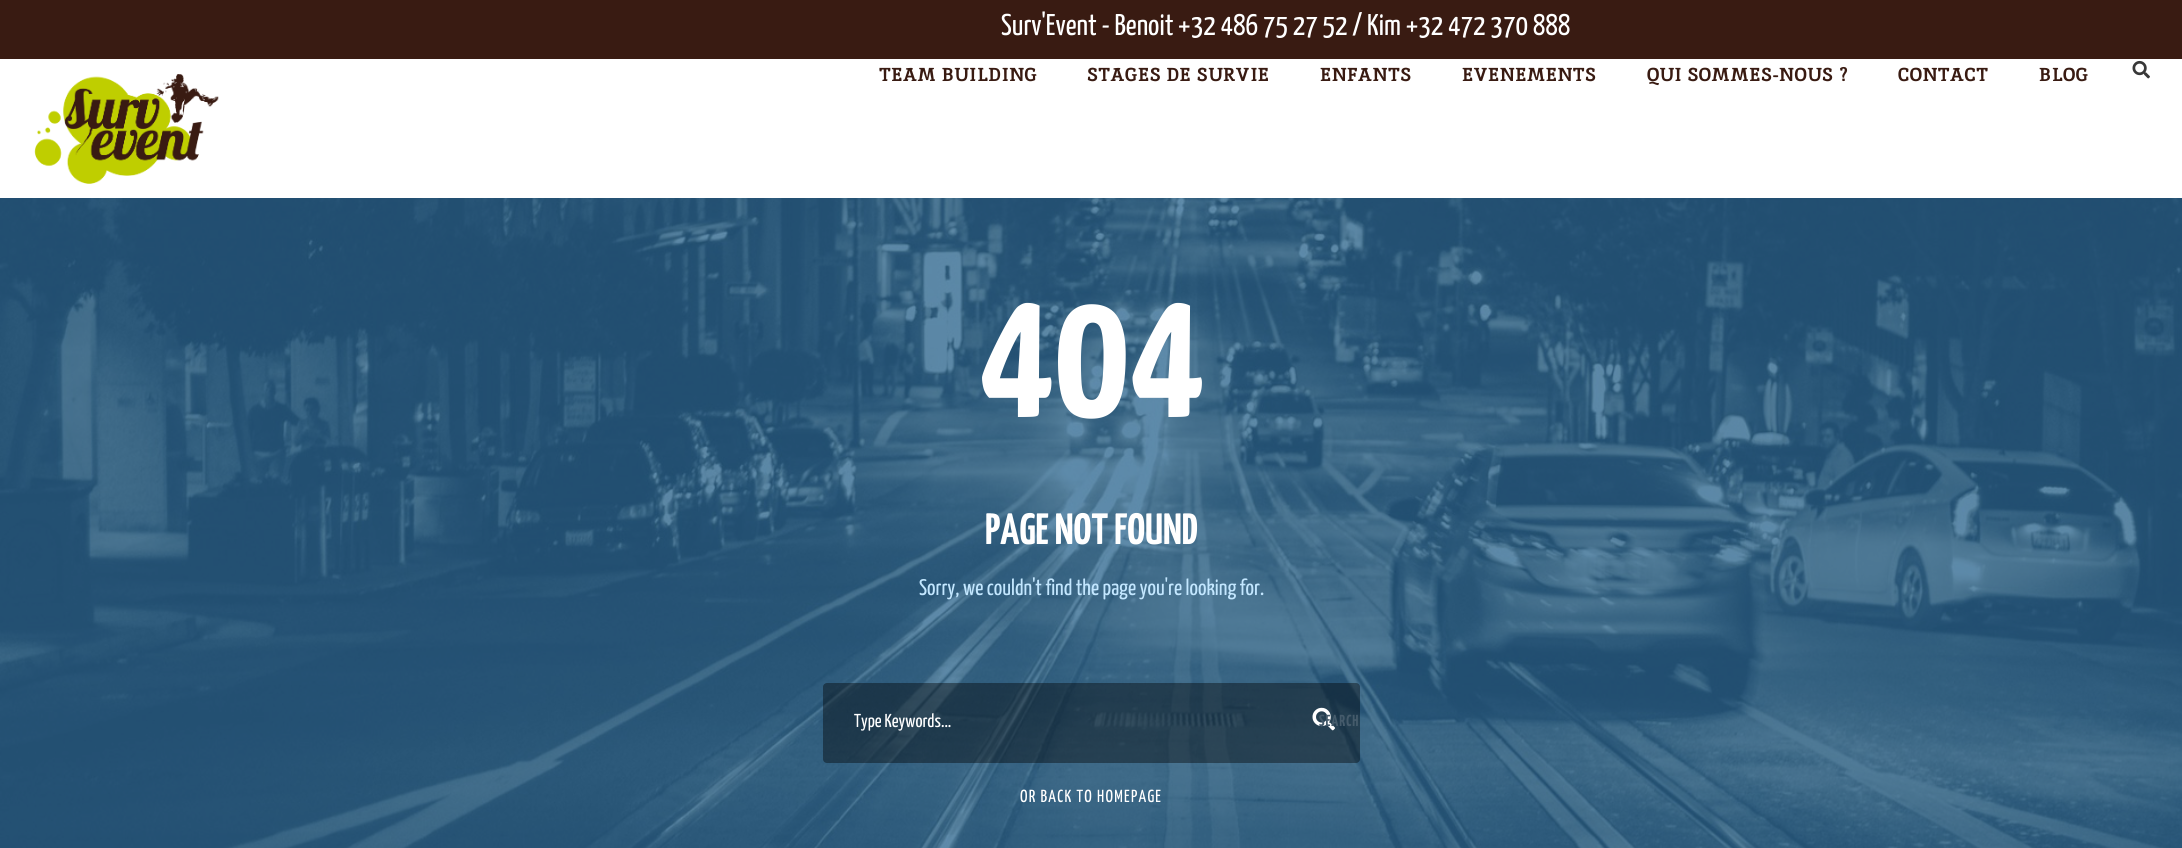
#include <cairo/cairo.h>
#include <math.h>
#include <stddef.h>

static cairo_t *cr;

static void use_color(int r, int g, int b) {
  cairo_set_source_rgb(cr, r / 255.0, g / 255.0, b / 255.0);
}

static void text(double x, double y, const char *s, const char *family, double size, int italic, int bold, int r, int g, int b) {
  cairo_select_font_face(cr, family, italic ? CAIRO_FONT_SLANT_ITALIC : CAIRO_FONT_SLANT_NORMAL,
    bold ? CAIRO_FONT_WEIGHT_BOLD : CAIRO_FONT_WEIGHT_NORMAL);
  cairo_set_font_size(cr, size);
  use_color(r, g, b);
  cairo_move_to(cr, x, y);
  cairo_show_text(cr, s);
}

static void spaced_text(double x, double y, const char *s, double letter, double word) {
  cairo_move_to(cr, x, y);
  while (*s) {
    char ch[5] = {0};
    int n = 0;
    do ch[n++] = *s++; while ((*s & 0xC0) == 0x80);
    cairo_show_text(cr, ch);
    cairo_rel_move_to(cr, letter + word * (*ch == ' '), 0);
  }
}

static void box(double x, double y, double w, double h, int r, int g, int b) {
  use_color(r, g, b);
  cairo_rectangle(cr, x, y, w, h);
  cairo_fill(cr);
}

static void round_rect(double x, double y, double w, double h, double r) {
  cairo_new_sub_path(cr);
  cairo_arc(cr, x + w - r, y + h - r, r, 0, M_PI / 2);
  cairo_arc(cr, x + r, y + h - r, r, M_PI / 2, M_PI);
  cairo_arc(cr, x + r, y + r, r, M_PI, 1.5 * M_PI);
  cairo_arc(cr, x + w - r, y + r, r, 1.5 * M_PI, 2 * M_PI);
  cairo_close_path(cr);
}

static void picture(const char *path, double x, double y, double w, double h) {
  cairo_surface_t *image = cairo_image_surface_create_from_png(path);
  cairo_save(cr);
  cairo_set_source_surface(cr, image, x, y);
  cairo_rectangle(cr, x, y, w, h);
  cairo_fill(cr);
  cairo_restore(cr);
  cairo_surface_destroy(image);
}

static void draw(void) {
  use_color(57, 27, 18);
  cairo_paint(cr);
  box(0, 59, 2182, 139, 255, 255, 255);
  picture("img_01.png", 34, 74, 185, 110);
  picture("img_02.png", 2132, 60, 18, 19);
  box(0, 198, 2182, 650, 35, 97, 142);
  picture("img_03.png", 0, 198, 2182, 650);
  cairo_set_source_rgba(cr, 0, 0, 0, 0.4);
  round_rect(823, 683, 537, 80, 4);
  cairo_fill(cr);
  picture("img_04.png", 1312, 707, 23, 24);
  text(1001, 35, "Surv'Event - Benoit +32 486 75 27 52 / Kim +32 472 370 888", "Yanone Kaffeesatz", 30, 0, 0, 255, 255, 255);
  cairo_select_font_face(cr, "Inika", CAIRO_FONT_SLANT_NORMAL, CAIRO_FONT_WEIGHT_BOLD);
  cairo_set_font_size(cr, 18.75);
  use_color(57, 27, 18);
  spaced_text(879, 81, "TEAM BUILDING", 0.6, 0);
  spaced_text(1087, 81, "STAGES DE SURVIE", 0.6, 0);
  spaced_text(1320, 81, "ENFANTS", 0.6, 0);
  spaced_text(1462, 81, "EVENEMENTS", 0.6, 0);
  spaced_text(1647, 81, "QUI SOMMES-NOUS ?", 0.6, 0);
  spaced_text(1898, 81, "CONTACT", 0.6, 0);
  spaced_text(2039, 81, "BLOG", 0.6, 0);
  text(979, 417, "404", "Yanone Kaffeesatz", 188, 0, 1, 255, 255, 255);
  text(985, 544, "PAGE NOT FOUND", "Yanone Kaffeesatz", 43.75, 0, 1, 255, 255, 255);
  text(919, 595, "Sorry, we couldn't find the page you're looking for.", "Yanone Kaffeesatz", 22.5, 0, 0, 195, 231, 255);
  text(854, 727, "Type Keywords...", "Yanone Kaffeesatz", 18.75, 0, 0, 255, 255, 255);
  cairo_select_font_face(cr, "Yanone Kaffeesatz", CAIRO_FONT_SLANT_NORMAL, CAIRO_FONT_WEIGHT_BOLD);
  cairo_set_font_size(cr, 16);
  use_color(69, 91, 107);
  spaced_text(1319, 726, "SEARCH", 1, 0);
  cairo_select_font_face(cr, "Yanone Kaffeesatz", CAIRO_FONT_SLANT_NORMAL, CAIRO_FONT_WEIGHT_NORMAL);
  cairo_set_font_size(cr, 17.5);
  use_color(255, 255, 255);
  spaced_text(1020, 802, "OR BACK TO HOMEPAGE", 1.25, 0);
}

int main(void) {
  cairo_surface_t *surface = cairo_image_surface_create(CAIRO_FORMAT_RGB24, 2182, 848);
  cr = cairo_create(surface);
  cairo_font_options_t *options = cairo_font_options_create();
  cairo_font_options_set_hint_metrics(options, CAIRO_HINT_METRICS_OFF);
  cairo_font_options_set_hint_style(options, CAIRO_HINT_STYLE_NONE);
  cairo_set_font_options(cr, options);
  cairo_set_miter_limit(cr, 4);
  draw();
  cairo_surface_write_to_png(surface, "out.png");
  cairo_font_options_destroy(options);
  cairo_destroy(cr);
  cairo_surface_destroy(surface);
  return 0;
}
